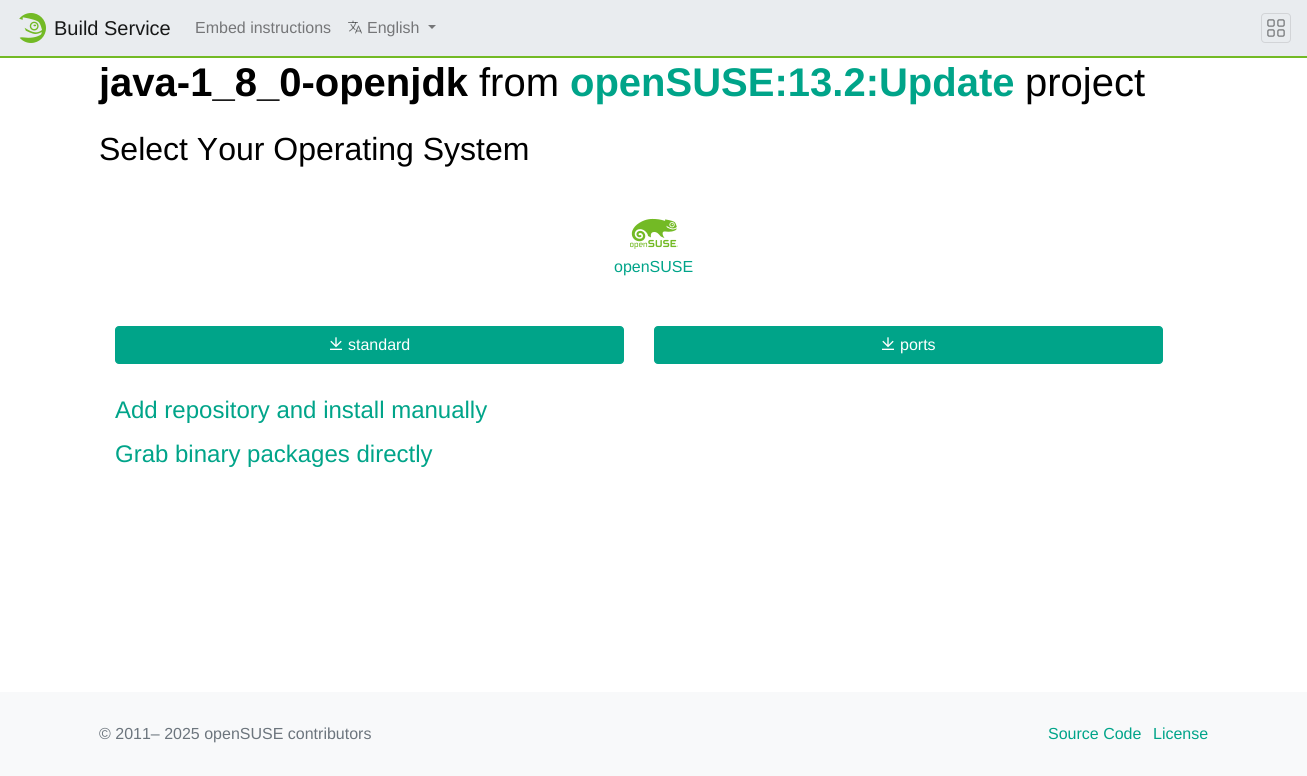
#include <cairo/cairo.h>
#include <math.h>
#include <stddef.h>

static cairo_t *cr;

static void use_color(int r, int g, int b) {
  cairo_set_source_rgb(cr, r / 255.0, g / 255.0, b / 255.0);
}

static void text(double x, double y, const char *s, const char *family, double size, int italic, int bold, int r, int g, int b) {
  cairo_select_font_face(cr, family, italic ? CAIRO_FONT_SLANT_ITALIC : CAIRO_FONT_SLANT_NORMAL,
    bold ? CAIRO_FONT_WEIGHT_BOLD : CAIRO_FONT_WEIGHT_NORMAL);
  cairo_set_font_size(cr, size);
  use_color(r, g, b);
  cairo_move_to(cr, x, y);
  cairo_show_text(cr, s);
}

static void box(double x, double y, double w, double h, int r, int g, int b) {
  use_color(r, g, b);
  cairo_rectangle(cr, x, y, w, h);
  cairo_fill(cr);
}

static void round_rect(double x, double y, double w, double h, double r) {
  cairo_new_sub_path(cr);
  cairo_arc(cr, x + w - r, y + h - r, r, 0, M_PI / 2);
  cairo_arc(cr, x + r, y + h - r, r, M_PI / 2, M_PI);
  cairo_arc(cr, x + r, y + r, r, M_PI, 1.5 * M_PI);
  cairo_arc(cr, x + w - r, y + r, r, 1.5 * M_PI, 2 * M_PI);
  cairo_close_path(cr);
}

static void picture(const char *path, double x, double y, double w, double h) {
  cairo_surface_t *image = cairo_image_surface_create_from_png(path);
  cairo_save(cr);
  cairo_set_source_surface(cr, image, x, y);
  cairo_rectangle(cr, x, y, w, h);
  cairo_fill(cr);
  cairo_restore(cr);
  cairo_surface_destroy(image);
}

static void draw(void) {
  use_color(255, 255, 255);
  cairo_paint(cr);
  box(0, 0, 1307, 56, 233, 236, 239);
  box(0, 56, 1307, 2, 115, 186, 37);
  picture("img_01.png", 19, 13, 27, 30);
  picture("img_02.png", 348, 20, 14, 14);
  use_color(117, 118, 120);
  cairo_new_path(cr);
  cairo_move_to(cr, 428, 25);
  cairo_line_to(cr, 436, 25);
  cairo_line_to(cr, 432, 29);
  cairo_close_path(cr);
  cairo_fill(cr);
  round_rect(1261.5, 13.5, 29, 29, 3.5);
  use_color(210, 212, 215);
  cairo_set_line_width(cr, 1);
  cairo_stroke(cr);
  picture("img_03.png", 1267, 19, 18, 18);
  picture("img_04.png", 630, 218, 48, 31);
  use_color(0, 164, 137);
  round_rect(115.5, 326.5, 508, 37, 3.5);
  cairo_fill_preserve(cr);
  cairo_stroke(cr);
  picture("img_05.png", 330, 337, 12, 13);
  round_rect(654.5, 326.5, 508, 37, 3.5);
  cairo_fill_preserve(cr);
  cairo_stroke(cr);
  picture("img_05.png", 882, 337, 12, 13);
  box(0, 692, 1307, 84, 248, 249, 250);
  text(54, 35, "Build Service", "Liberation Sans", 20, 0, 0, 23, 24, 24);
  text(195, 33, "Embed instructions", "Liberation Sans", 16, 0, 0, 117, 118, 120);
  text(367, 33, "English", "Liberation Sans", 16, 0, 0, 117, 118, 120);
  text(99, 96, "java-1_8_0-openjdk", "Liberation Sans", 40, 0, 1, 0, 0, 0);
  text(479, 96, "from", "Liberation Sans", 40, 0, 0, 0, 0, 0);
  text(570, 96, "openSUSE:13.2:Update", "Liberation Sans", 40, 0, 1, 0, 164, 137);
  text(1025, 96, "project", "Liberation Sans", 40, 0, 0, 0, 0, 0);
  text(99, 160, "Select Your Operating System", "Liberation Sans", 32, 0, 0, 0, 0, 0);
  text(614, 272, "openSUSE", "Liberation Sans", 16, 0, 0, 0, 164, 137);
  text(348, 350, "standard", "Liberation Sans", 16, 0, 0, 255, 255, 255);
  text(900, 350, "ports", "Liberation Sans", 16, 0, 0, 255, 255, 255);
  text(115, 418, "Add repository and install manually", "Liberation Sans", 24, 0, 0, 0, 164, 137);
  text(115, 462, "Grab binary packages directly", "Liberation Sans", 24, 0, 0, 0, 164, 137);
  text(99, 739, "© 2011– 2025 openSUSE contributors", "Liberation Sans", 16, 0, 0, 108, 117, 125);
  text(1048, 739, "Source Code", "Liberation Sans", 16, 0, 0, 0, 164, 137);
  text(1153, 739, "License", "Liberation Sans", 16, 0, 0, 0, 164, 137);
}

int main(void) {
  cairo_surface_t *surface = cairo_image_surface_create(CAIRO_FORMAT_RGB24, 1307, 776);
  cr = cairo_create(surface);
  cairo_font_options_t *options = cairo_font_options_create();
  cairo_font_options_set_hint_metrics(options, CAIRO_HINT_METRICS_OFF);
  cairo_font_options_set_hint_style(options, CAIRO_HINT_STYLE_NONE);
  cairo_set_font_options(cr, options);
  cairo_set_miter_limit(cr, 4);
  draw();
  cairo_surface_write_to_png(surface, "out.png");
  cairo_font_options_destroy(options);
  cairo_destroy(cr);
  cairo_surface_destroy(surface);
  return 0;
}
